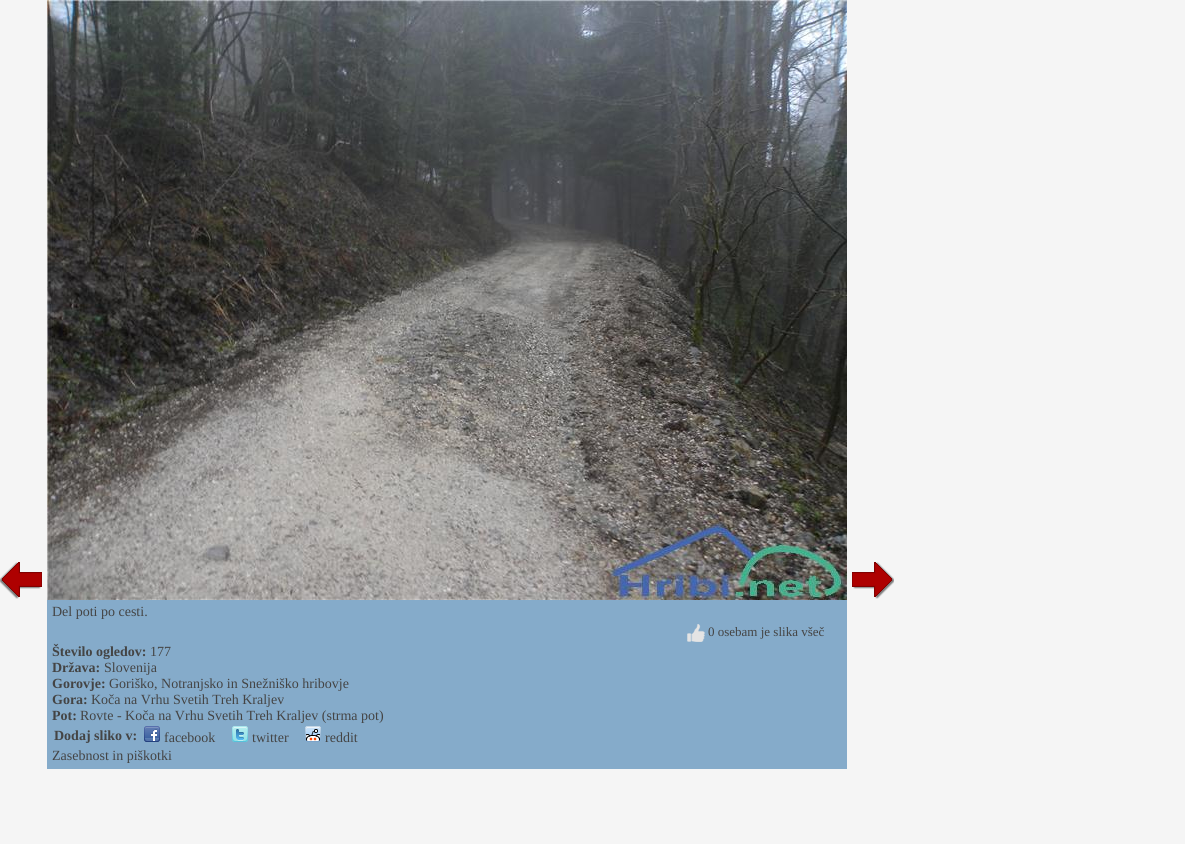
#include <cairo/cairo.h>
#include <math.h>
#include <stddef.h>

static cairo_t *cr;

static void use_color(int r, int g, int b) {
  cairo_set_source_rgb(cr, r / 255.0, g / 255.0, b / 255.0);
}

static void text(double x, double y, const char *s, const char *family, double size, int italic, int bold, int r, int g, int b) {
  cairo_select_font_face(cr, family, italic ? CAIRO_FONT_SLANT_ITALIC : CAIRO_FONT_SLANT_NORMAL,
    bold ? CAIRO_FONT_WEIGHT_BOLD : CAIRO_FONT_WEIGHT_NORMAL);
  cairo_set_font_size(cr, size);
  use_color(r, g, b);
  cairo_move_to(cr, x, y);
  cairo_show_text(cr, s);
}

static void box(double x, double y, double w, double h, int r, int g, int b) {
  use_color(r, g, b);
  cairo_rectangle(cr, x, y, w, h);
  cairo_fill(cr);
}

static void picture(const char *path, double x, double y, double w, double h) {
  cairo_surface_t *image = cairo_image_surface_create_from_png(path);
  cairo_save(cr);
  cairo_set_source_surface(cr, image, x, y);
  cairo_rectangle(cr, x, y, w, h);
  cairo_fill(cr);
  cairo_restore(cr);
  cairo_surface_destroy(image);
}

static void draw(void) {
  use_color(245, 245, 245);
  cairo_paint(cr);
  picture("img_01.png", 0, 562, 42, 37);
  picture("img_02.png", 852, 562, 42, 37);
  box(47, 600, 800, 169, 133, 171, 202);
  picture("img_03.png", 47, 0, 800, 600);
  picture("img_04.png", 687, 624, 18, 18);
  picture("img_05.png", 144, 726, 16, 16);
  picture("img_06.png", 232, 726, 16, 16);
  picture("img_07.png", 305, 726, 16, 16);
  text(52, 616, "Del poti po cesti.", "Liberation Serif", 14, 0, 0, 68, 68, 68);
  text(708, 636, "0 osebam je slika všeč", "Liberation Serif", 13, 0, 0, 68, 68, 68);
  text(52, 656, "Število ogledov:", "Liberation Serif", 14, 0, 1, 68, 68, 68);
  text(150, 656, "177", "Liberation Serif", 14, 0, 0, 68, 68, 68);
  text(52, 672, "Država:", "Liberation Serif", 14, 0, 1, 68, 68, 68);
  text(104, 672, "Slovenija", "Liberation Serif", 14, 0, 0, 68, 68, 68);
  text(52, 688, "Gorovje:", "Liberation Serif", 14, 0, 1, 68, 68, 68);
  text(109, 688, "Goriško, Notranjsko in Snežniško hribovje", "Liberation Serif", 14, 0, 0, 68, 68, 68);
  text(52, 704, "Gora:", "Liberation Serif", 14, 0, 1, 68, 68, 68);
  text(91, 704, "Koča na Vrhu Svetih Treh Kraljev", "Liberation Serif", 14, 0, 0, 68, 68, 68);
  text(52, 720, "Pot:", "Liberation Serif", 14, 0, 1, 68, 68, 68);
  text(80, 720, "Rovte - Koča na Vrhu Svetih Treh Kraljev (strma pot)", "Liberation Serif", 14, 0, 0, 68, 68, 68);
  text(54, 740, "Dodaj sliko v:", "Liberation Serif", 14, 0, 1, 68, 68, 68);
  text(164, 742, "facebook", "Liberation Serif", 14, 0, 0, 68, 68, 68);
  text(252, 742, "twitter", "Liberation Serif", 14, 0, 0, 68, 68, 68);
  text(325, 742, "reddit", "Liberation Serif", 14, 0, 0, 68, 68, 68);
  text(52, 760, "Zasebnost in piškotki", "Liberation Serif", 14, 0, 0, 68, 68, 68);
}

int main(void) {
  cairo_surface_t *surface = cairo_image_surface_create(CAIRO_FORMAT_RGB24, 1185, 844);
  cr = cairo_create(surface);
  cairo_font_options_t *options = cairo_font_options_create();
  cairo_font_options_set_hint_metrics(options, CAIRO_HINT_METRICS_OFF);
  cairo_font_options_set_hint_style(options, CAIRO_HINT_STYLE_NONE);
  cairo_set_font_options(cr, options);
  cairo_set_miter_limit(cr, 4);
  draw();
  cairo_surface_write_to_png(surface, "out.png");
  cairo_font_options_destroy(options);
  cairo_destroy(cr);
  cairo_surface_destroy(surface);
  return 0;
}
